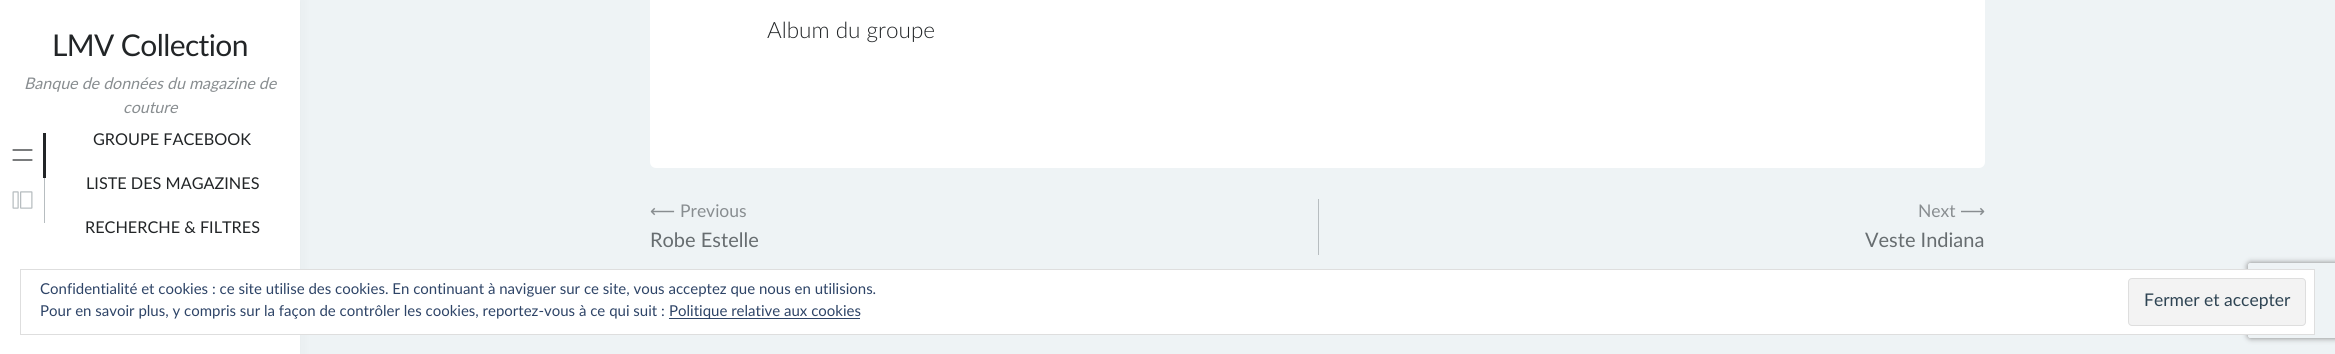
#include <cairo/cairo.h>
#include <math.h>
#include <stddef.h>

static cairo_t *cr;

static void use_color(int r, int g, int b) {
  cairo_set_source_rgb(cr, r / 255.0, g / 255.0, b / 255.0);
}

static void text(double x, double y, const char *s, const char *family, double size, int italic, int bold, int r, int g, int b) {
  cairo_select_font_face(cr, family, italic ? CAIRO_FONT_SLANT_ITALIC : CAIRO_FONT_SLANT_NORMAL,
    bold ? CAIRO_FONT_WEIGHT_BOLD : CAIRO_FONT_WEIGHT_NORMAL);
  cairo_set_font_size(cr, size);
  use_color(r, g, b);
  cairo_move_to(cr, x, y);
  cairo_show_text(cr, s);
}

static void spaced_text(double x, double y, const char *s, double letter, double word) {
  cairo_move_to(cr, x, y);
  while (*s) {
    char ch[5] = {0};
    int n = 0;
    do ch[n++] = *s++; while ((*s & 0xC0) == 0x80);
    cairo_show_text(cr, ch);
    cairo_rel_move_to(cr, letter + word * (*ch == ' '), 0);
  }
}

static void box(double x, double y, double w, double h, int r, int g, int b) {
  use_color(r, g, b);
  cairo_rectangle(cr, x, y, w, h);
  cairo_fill(cr);
}

static void round_rect(double x, double y, double w, double h, double r) {
  cairo_new_sub_path(cr);
  cairo_arc(cr, x + w - r, y + h - r, r, 0, M_PI / 2);
  cairo_arc(cr, x + r, y + h - r, r, M_PI / 2, M_PI);
  cairo_arc(cr, x + r, y + r, r, M_PI, 1.5 * M_PI);
  cairo_arc(cr, x + w - r, y + r, r, 1.5 * M_PI, 2 * M_PI);
  cairo_close_path(cr);
}

static void shadow(double x, double y, double w, double h, double r, double blur, double alpha) {
  cairo_push_group_with_content(cr, CAIRO_CONTENT_ALPHA);
  cairo_set_operator(cr, CAIRO_OPERATOR_SOURCE);
  for (int i = 15; i >= -15 && fmin(w, h) + blur * i / 3 > 0; i -= 2) {
    double e = blur * i / 6;
    cairo_set_source_rgba(cr, 0, 0, 0, alpha * erfc((i - 1) / 8.5) / 2);
    round_rect(x - e, y - e, w + 2 * e, h + 2 * e, fmax(0, fmin(r + e + blur * .6, fmin(w, h) / 2 + e)));
    cairo_fill(cr);
  }
  cairo_pattern_t *soft = cairo_pop_group(cr);
  cairo_mask(cr, soft);
  cairo_pattern_destroy(soft);
}

static void picture(const char *path, double x, double y, double w, double h) {
  cairo_surface_t *image = cairo_image_surface_create_from_png(path);
  cairo_save(cr);
  cairo_set_source_surface(cr, image, x, y);
  cairo_rectangle(cr, x, y, w, h);
  cairo_fill(cr);
  cairo_restore(cr);
  cairo_surface_destroy(image);
}

static void draw(void) {
  use_color(238, 243, 245);
  cairo_paint(cr);
  use_color(255, 255, 255);
  round_rect(650, -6, 1335, 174, 6);
  cairo_fill(cr);
  box(1318, 199, 1, 56, 183, 189, 192);
  use_color(34, 37, 39);
  shadow(0, 0, 300, 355, 0, 6, 0.05);
  box(0, 0, 300, 354, 255, 255, 255);
  box(44, 178, 1, 45, 183, 189, 192);
  picture("img_01.png", 12, 191, 21, 18);
  box(43, 133, 3, 45, 34, 37, 39);
  picture("img_02.png", 12, 149, 21, 12);
  cairo_save(cr);
  cairo_set_fill_rule(cr, CAIRO_FILL_RULE_EVEN_ODD);
  cairo_new_path(cr);
  cairo_move_to(cr, 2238, 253);
  cairo_line_to(cr, 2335, 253);
  cairo_line_to(cr, 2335, 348);
  cairo_line_to(cr, 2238, 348);
  cairo_close_path(cr);
  cairo_move_to(cr, 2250.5, 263);
  cairo_line_to(cr, 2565.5, 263);
  cairo_curve_to(cr, 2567, 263, 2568, 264, 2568, 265.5);
  cairo_line_to(cr, 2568, 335.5);
  cairo_curve_to(cr, 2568, 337, 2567, 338, 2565.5, 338);
  cairo_line_to(cr, 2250.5, 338);
  cairo_curve_to(cr, 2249, 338, 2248, 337, 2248, 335.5);
  cairo_line_to(cr, 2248, 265.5);
  cairo_curve_to(cr, 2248, 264, 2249, 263, 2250.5, 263);
  cairo_close_path(cr);
  cairo_clip(cr);
  use_color(128, 128, 128);
  shadow(2248, 263, 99, 75, 2.5, 3, 1);
  cairo_restore(cr);
  box(300, 270, 2014, 64, 255, 255, 255);
  cairo_rectangle(cr, 20.5, 269.5, 2294, 65);
  use_color(222, 222, 222);
  cairo_set_line_width(cr, 1);
  cairo_stroke(cr);
  use_color(243, 243, 243);
  round_rect(2128.5, 278.5, 177, 47, 3.5);
  cairo_fill_preserve(cr);
  use_color(222, 222, 222);
  cairo_stroke(cr);
  box(669, 318, 191, 1, 46, 68, 103);
  cairo_select_font_face(cr, "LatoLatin", CAIRO_FONT_SLANT_NORMAL, CAIRO_FONT_WEIGHT_NORMAL);
  cairo_set_font_size(cr, 30);
  use_color(34, 37, 39);
  spaced_text(52, 56, "LMV Collection", -0.6, 0);
  text(24, 89, "Banque de données du magazine de", "LatoLatin", 16, 1, 0, 136, 141, 144);
  text(123, 113, "couture", "LatoLatin", 16, 1, 0, 136, 141, 144);
  text(767, 38, "Album du groupe", "LatoLatin Light", 22.5, 0, 0, 34, 37, 39);
  text(650, 217, "⟵", "DejaVu Sans", 17.5, 0, 0, 136, 141, 144);
  text(680, 217, "Previous", "LatoLatin", 17.5, 0, 0, 136, 141, 144);
  text(650, 247, "Robe Estelle", "LatoLatin", 20, 0, 0, 103, 109, 112);
  text(1918, 217, "Next", "LatoLatin", 17.5, 0, 0, 136, 141, 144);
  text(1960, 217, "⟶", "DejaVu Sans", 17.5, 0, 0, 136, 141, 144);
  text(1865, 247, "Veste Indiana", "LatoLatin", 20, 0, 0, 103, 109, 112);
  text(93, 145, "GROUPE FACEBOOK", "LatoLatin", 16.25, 0, 0, 34, 37, 39);
  text(86, 189, "LISTE DES MAGAZINES", "LatoLatin", 16.25, 0, 0, 34, 37, 39);
  text(85, 233, "RECHERCHE & FILTRES", "LatoLatin", 16.25, 0, 0, 34, 37, 39);
  text(40, 294, "Confidentialité et cookies : ce site utilise des cookies. En continuant à naviguer sur ce site, vous acceptez que nous en utilisions.", "LatoLatin", 15, 0, 0, 46, 68, 103);
  text(2144, 306, "Fermer et accepter", "LatoLatin", 17.5, 0, 0, 46, 68, 83);
  text(40, 316, "Pour en savoir plus, y compris sur la façon de contrôler les cookies, reportez-vous à ce qui suit :", "LatoLatin", 15, 0, 0, 46, 68, 103);
  text(669, 316, "Politique relative aux cookies", "LatoLatin", 15, 0, 0, 46, 68, 103);
}

int main(void) {
  cairo_surface_t *surface = cairo_image_surface_create(CAIRO_FORMAT_RGB24, 2335, 354);
  cr = cairo_create(surface);
  cairo_font_options_t *options = cairo_font_options_create();
  cairo_font_options_set_hint_metrics(options, CAIRO_HINT_METRICS_OFF);
  cairo_font_options_set_hint_style(options, CAIRO_HINT_STYLE_NONE);
  cairo_set_font_options(cr, options);
  cairo_set_miter_limit(cr, 4);
  draw();
  cairo_surface_write_to_png(surface, "out.png");
  cairo_font_options_destroy(options);
  cairo_destroy(cr);
  cairo_surface_destroy(surface);
  return 0;
}
